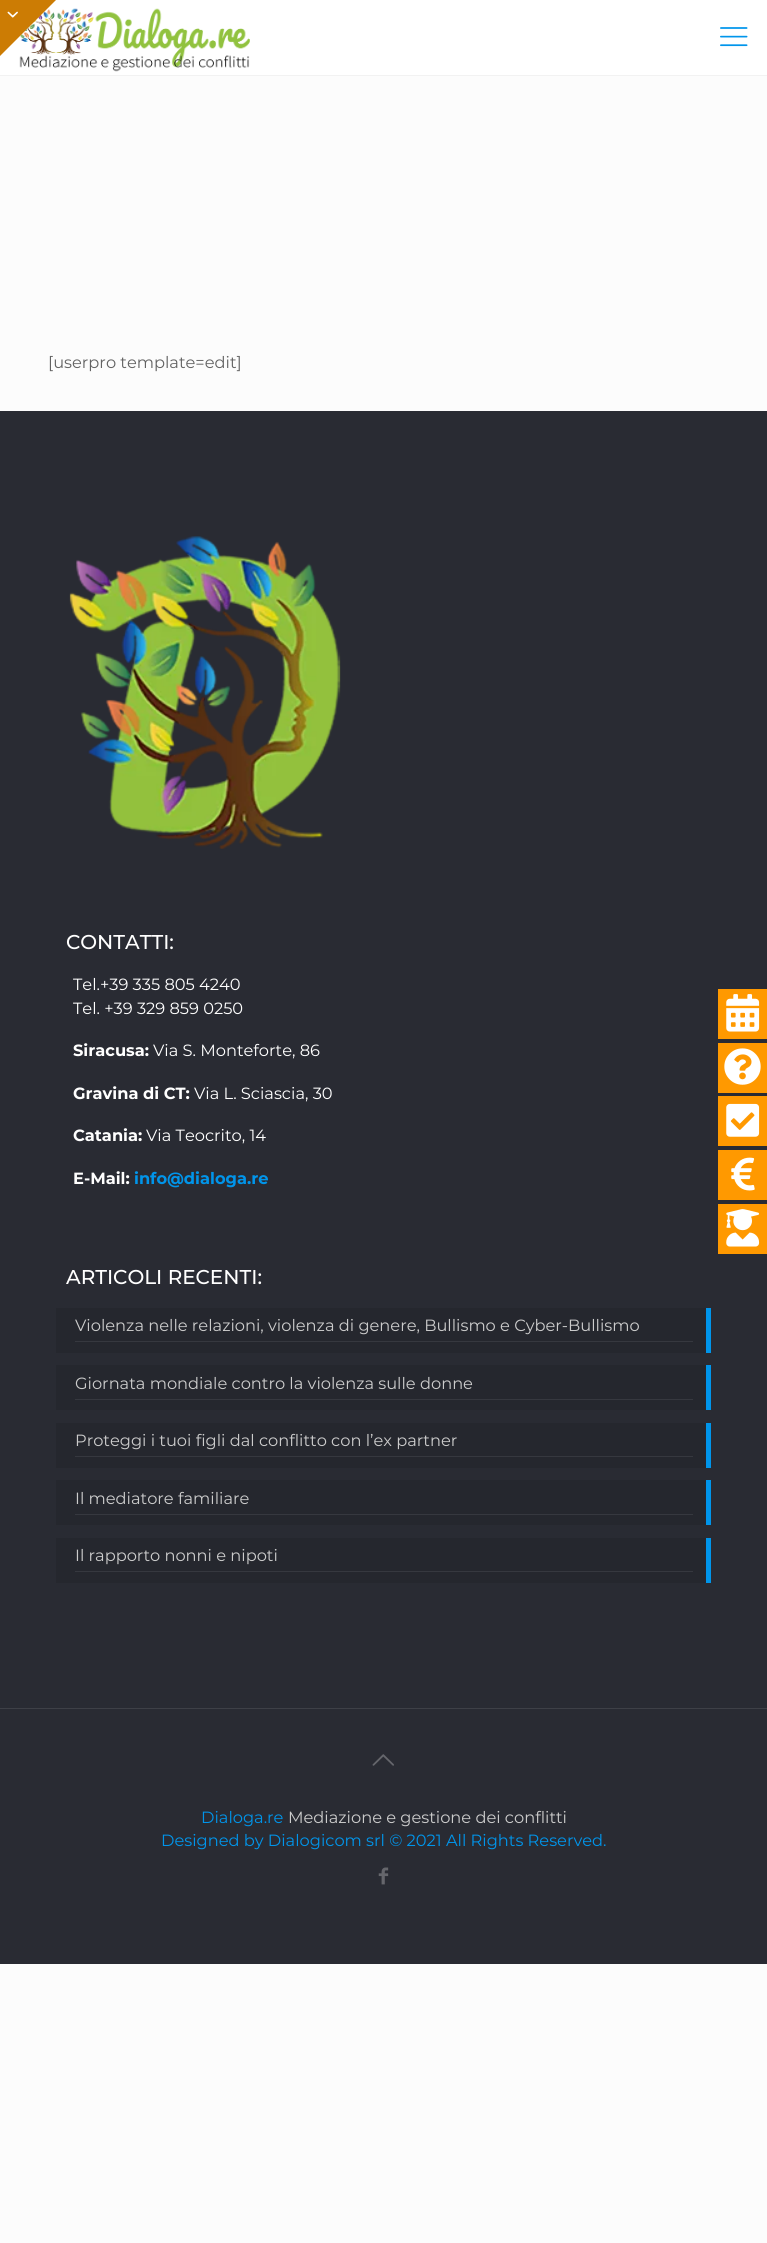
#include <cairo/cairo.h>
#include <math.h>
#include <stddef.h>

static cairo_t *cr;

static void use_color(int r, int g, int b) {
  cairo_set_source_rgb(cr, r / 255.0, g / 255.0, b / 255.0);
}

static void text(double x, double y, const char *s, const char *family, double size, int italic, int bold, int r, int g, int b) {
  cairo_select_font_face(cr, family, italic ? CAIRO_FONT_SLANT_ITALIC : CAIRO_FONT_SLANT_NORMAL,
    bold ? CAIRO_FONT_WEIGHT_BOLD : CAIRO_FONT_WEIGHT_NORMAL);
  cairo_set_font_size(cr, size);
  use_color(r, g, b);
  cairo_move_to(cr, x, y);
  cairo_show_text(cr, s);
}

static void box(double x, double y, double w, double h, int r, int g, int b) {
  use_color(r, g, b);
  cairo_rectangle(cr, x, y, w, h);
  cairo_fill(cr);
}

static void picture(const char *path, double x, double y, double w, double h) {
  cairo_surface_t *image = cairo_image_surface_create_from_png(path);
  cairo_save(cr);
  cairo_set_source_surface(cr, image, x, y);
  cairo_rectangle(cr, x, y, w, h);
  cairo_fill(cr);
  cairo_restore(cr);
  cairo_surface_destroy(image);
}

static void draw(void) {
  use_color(252, 252, 252);
  cairo_paint(cr);
  box(0, 0, 767, 75, 255, 255, 255);
  picture("img_02.png", 19, 8, 231, 64);
  use_color(204, 124, 4);
  cairo_new_path(cr);
  cairo_move_to(cr, 0, 0);
  cairo_line_to(cr, 56, 0);
  cairo_line_to(cr, 0, 56);
  cairo_close_path(cr);
  cairo_fill(cr);
  picture("img_01.png", 7, 11, 11, 7);
  box(0, 75, 767, 1, 242, 242, 242);
  picture("img_03.png", 720, 27, 28, 20);
  box(0, 411, 767, 1553, 41, 43, 51);
  picture("img_04.png", 69, 536, 272, 313);
  box(56, 1308, 650, 45, 37, 39, 46);
  box(75, 1341, 618, 1, 54, 56, 63);
  box(706, 1308, 5, 45, 0, 149, 235);
  box(56, 1365, 650, 45, 37, 39, 46);
  box(75, 1399, 618, 1, 54, 56, 63);
  box(706, 1365, 5, 45, 0, 149, 235);
  box(56, 1423, 650, 45, 37, 39, 46);
  box(75, 1456, 618, 1, 54, 56, 63);
  box(706, 1423, 5, 45, 0, 149, 235);
  box(56, 1480, 650, 45, 37, 39, 46);
  box(75, 1514, 618, 1, 54, 56, 63);
  box(706, 1480, 5, 45, 0, 149, 235);
  box(56, 1538, 650, 45, 37, 39, 46);
  box(75, 1571, 618, 1, 54, 56, 63);
  box(706, 1538, 5, 45, 0, 149, 235);
  box(0, 1708, 767, 1, 62, 64, 71);
  picture("img_05.png", 372, 1754, 22, 12);
  picture("img_06.png", 378, 1867, 11, 18);
  box(718, 989, 49, 50, 255, 153, 0);
  picture("img_07.png", 726, 994, 34, 38);
  box(718, 1043, 49, 50, 255, 153, 0);
  picture("img_08.png", 724, 1048, 37, 37);
  box(718, 1096, 49, 50, 255, 153, 0);
  picture("img_09.png", 726, 1103, 34, 34);
  box(718, 1150, 49, 50, 255, 153, 0);
  picture("img_10.png", 731, 1157, 24, 34);
  box(718, 1204, 49, 50, 255, 153, 0);
  picture("img_11.png", 726, 1209, 34, 38);
  text(48, 368, "[userpro template=edit]", "Montserrat", 16.25, 0, 0, 98, 98, 98);
  text(66, 949, "CONTATTI:", "Montserrat Medium", 20, 0, 0, 255, 255, 255);
  text(73, 990, "Tel.+39 335 805 4240", "Montserrat", 16.25, 0, 0, 255, 255, 255);
  text(73, 1014, "Tel. +39 329 859 0250", "Montserrat", 16.25, 0, 0, 255, 255, 255);
  text(73, 1056, "Siracusa:", "Montserrat", 16.25, 0, 1, 255, 255, 255);
  text(153, 1056, "Via S. Monteforte, 86", "Montserrat", 16.25, 0, 0, 255, 255, 255);
  text(73, 1099, "Gravina di CT:", "Montserrat", 16.25, 0, 1, 255, 255, 255);
  text(194, 1099, "Via L. Sciascia, 30", "Montserrat", 16.25, 0, 0, 255, 255, 255);
  text(73, 1141, "Catania:", "Montserrat", 16.25, 0, 1, 255, 255, 255);
  text(146, 1141, "Via Teocrito, 14", "Montserrat", 16.25, 0, 0, 255, 255, 255);
  text(73, 1184, "E-Mail:", "Montserrat", 16.25, 0, 1, 255, 255, 255);
  text(134, 1184, "info@dialoga.re", "Montserrat", 16.25, 0, 1, 0, 149, 235);
  text(66, 1284, "ARTICOLI RECENTI:", "Montserrat Medium", 20, 0, 0, 255, 255, 255);
  text(75, 1331, "Violenza nelle relazioni, violenza di genere, Bullismo e Cyber-Bullismo", "Montserrat", 16.25, 0, 0, 204, 204, 204);
  text(75, 1389, "Giornata mondiale contro la violenza sulle donne", "Montserrat", 16.25, 0, 0, 204, 204, 204);
  text(75, 1446, "Proteggi i tuoi figli dal conflitto con l’ex partner", "Montserrat", 16.25, 0, 0, 204, 204, 204);
  text(75, 1504, "Il mediatore familiare", "Montserrat", 16.25, 0, 0, 204, 204, 204);
  text(75, 1561, "Il rapporto nonni e nipoti", "Montserrat", 16.25, 0, 0, 204, 204, 204);
  text(201, 1823, "Dialoga.re", "Montserrat", 16.25, 0, 0, 0, 149, 235);
  text(288, 1823, "Mediazione e gestione dei conflitti", "Montserrat", 16.25, 0, 0, 204, 204, 204);
  text(161, 1846, "Designed by Dialogicom srl © 2021 All Rights Reserved.", "Montserrat", 16.25, 0, 0, 0, 149, 235);
}

int main(void) {
  cairo_surface_t *surface = cairo_image_surface_create(CAIRO_FORMAT_RGB24, 767, 2243);
  cr = cairo_create(surface);
  cairo_font_options_t *options = cairo_font_options_create();
  cairo_font_options_set_hint_metrics(options, CAIRO_HINT_METRICS_OFF);
  cairo_font_options_set_hint_style(options, CAIRO_HINT_STYLE_NONE);
  cairo_set_font_options(cr, options);
  cairo_set_miter_limit(cr, 4);
  draw();
  cairo_surface_write_to_png(surface, "out.png");
  cairo_font_options_destroy(options);
  cairo_destroy(cr);
  cairo_surface_destroy(surface);
  return 0;
}
